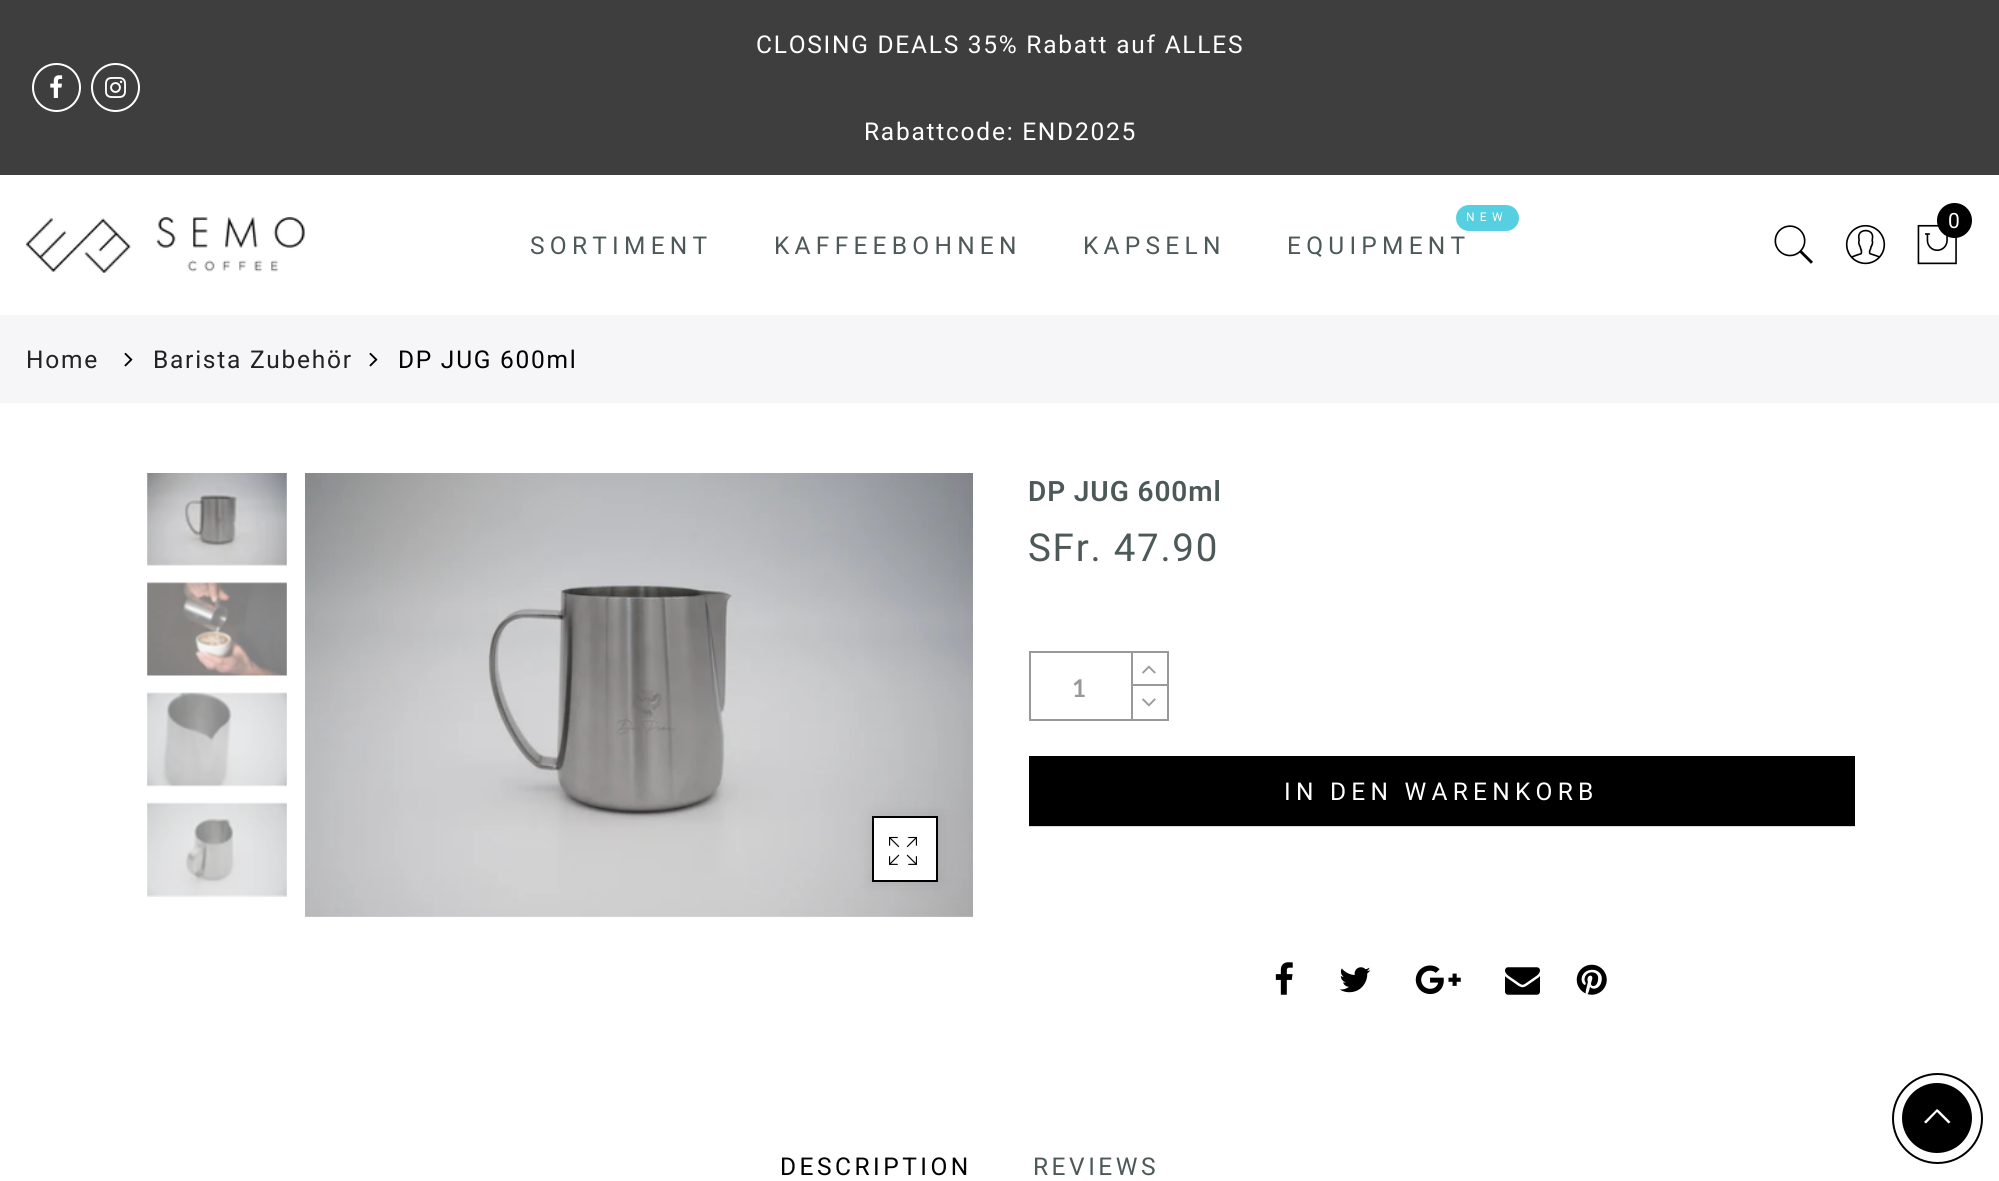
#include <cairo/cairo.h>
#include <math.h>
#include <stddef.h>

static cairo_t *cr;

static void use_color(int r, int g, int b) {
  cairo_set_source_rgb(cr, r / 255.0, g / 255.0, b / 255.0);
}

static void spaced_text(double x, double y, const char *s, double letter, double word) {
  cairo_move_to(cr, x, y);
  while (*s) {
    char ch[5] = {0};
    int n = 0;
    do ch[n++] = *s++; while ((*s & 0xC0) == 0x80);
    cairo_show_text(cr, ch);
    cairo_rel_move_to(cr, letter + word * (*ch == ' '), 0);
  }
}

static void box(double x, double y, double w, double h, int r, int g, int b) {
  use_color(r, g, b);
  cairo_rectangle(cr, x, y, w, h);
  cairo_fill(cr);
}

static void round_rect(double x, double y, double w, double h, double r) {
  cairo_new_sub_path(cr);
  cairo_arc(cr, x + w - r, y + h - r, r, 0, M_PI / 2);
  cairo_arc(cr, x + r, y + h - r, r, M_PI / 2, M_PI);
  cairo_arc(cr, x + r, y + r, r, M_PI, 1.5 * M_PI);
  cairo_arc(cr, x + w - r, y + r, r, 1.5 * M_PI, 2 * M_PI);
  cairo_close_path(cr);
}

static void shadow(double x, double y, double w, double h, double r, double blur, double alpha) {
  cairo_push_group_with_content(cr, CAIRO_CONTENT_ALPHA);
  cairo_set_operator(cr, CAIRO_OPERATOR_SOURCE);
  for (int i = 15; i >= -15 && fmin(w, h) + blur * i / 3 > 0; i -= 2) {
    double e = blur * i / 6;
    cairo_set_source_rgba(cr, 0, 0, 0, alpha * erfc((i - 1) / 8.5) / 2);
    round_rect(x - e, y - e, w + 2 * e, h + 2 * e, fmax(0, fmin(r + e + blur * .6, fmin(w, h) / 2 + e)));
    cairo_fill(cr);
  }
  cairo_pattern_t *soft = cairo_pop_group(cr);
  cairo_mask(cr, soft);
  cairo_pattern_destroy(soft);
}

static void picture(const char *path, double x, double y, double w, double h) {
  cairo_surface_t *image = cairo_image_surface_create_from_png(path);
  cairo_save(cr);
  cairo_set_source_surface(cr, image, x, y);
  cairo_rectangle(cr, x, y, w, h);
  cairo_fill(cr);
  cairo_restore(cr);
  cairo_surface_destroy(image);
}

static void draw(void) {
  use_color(255, 255, 255);
  cairo_paint(cr);
  box(1029, 826, 826, 1, 217, 217, 217);
  box(0, 0, 1999, 175, 62, 62, 62);
  cairo_arc(cr, 56.5, 87.5, 23.5, 0, 2 * M_PI);
  use_color(255, 255, 255);
  cairo_stroke(cr);
  picture("img_01.png", 50, 75, 13, 23);
  cairo_arc(cr, 115.5, 87.5, 23.5, 0, 2 * M_PI);
  cairo_stroke(cr);
  picture("img_02.png", 105, 77, 21, 21);
  picture("img_03.png", 26, 217, 279, 56);
  use_color(86, 207, 225);
  round_rect(1456, 205, 63, 26, 13);
  cairo_fill(cr);
  picture("img_04.png", 1917, 224, 40, 41);
  use_color(0, 0, 0);
  cairo_arc(cr, 1954.5, 220.5, 17.5, 0, 2 * M_PI);
  cairo_fill(cr);
  picture("img_05.png", 1774, 225, 39, 39);
  picture("img_06.png", 1845, 224, 41, 41);
  box(0, 315, 1999, 88, 246, 246, 248);
  picture("img_07.png", 124, 352, 9, 15);
  picture("img_07.png", 369, 352, 9, 15);
  picture("img_08.png", 147, 473, 140, 93);
  picture("img_09.png", 147, 582, 140, 94);
  picture("img_10.png", 147, 692, 140, 95);
  picture("img_11.png", 147, 802, 140, 95);
  picture("img_12.png", 305, 473, 668, 444);
  use_color(0, 0, 0);
  shadow(872, 816, 66, 66, 0, 8, 0.1);
  use_color(255, 255, 255);
  cairo_rectangle(cr, 873, 817, 64, 64);
  cairo_fill_preserve(cr);
  use_color(0, 0, 0);
  cairo_stroke(cr);
  picture("img_13.png", 889, 836, 28, 29);
  cairo_rectangle(cr, 1030, 652, 138, 68);
  use_color(153, 153, 153);
  cairo_stroke(cr);
  box(1131, 653, 2, 68, 153, 153, 153);
  box(1132, 684, 35, 2, 153, 153, 153);
  picture("img_14.png", 1142, 665, 14, 9);
  picture("img_15.png", 1142, 698, 14, 9);
  box(1029, 756, 826, 70, 0, 0, 0);
  picture("img_16.png", 1275, 962, 18, 33);
  picture("img_17.png", 1339, 967, 32, 26);
  picture("img_18.png", 1415, 965, 46, 30);
  picture("img_19.png", 1505, 967, 35, 28);
  picture("img_20.png", 1576, 964, 31, 31);
  cairo_arc(cr, 1937.5, 1118.5, 44.5, 0, 2 * M_PI);
  cairo_stroke(cr);
  cairo_arc(cr, 1937, 1118, 35, 0, 2 * M_PI);
  cairo_fill(cr);
  use_color(255, 255, 255);
  cairo_new_path(cr);
  cairo_move_to(cr, 1939, 1110.5);
  cairo_line_to(cr, 1937, 1109);
  cairo_line_to(cr, 1924, 1122);
  cairo_line_to(cr, 1926, 1123.5);
  cairo_line_to(cr, 1937, 1112);
  cairo_line_to(cr, 1948.5, 1123.5);
  cairo_line_to(cr, 1950.5, 1122);
  cairo_close_path(cr);
  cairo_fill(cr);
  cairo_select_font_face(cr, "Roboto", CAIRO_FONT_SLANT_NORMAL, CAIRO_FONT_WEIGHT_NORMAL);
  cairo_set_font_size(cr, 24.5);
  spaced_text(756, 53, "CLOSING DEALS 35% Rabatt auf ALLES", 1.75, 0);
  spaced_text(864, 140, "Rabattcode: END2025", 1.75, 0);
  use_color(77, 89, 89);
  spaced_text(530, 254, "SORTIMENT", 5.25, 0);
  spaced_text(774, 254, "KAFFEEBOHNEN", 5.25, 0);
  spaced_text(1083, 254, "KAPSELN", 5.25, 0);
  cairo_set_font_size(cr, 12);
  use_color(255, 255, 255);
  spaced_text(1466, 221, "NEW", 5.25, 0);
  cairo_set_font_size(cr, 24.5);
  use_color(77, 89, 89);
  spaced_text(1287, 254, "EQUIPMENT", 5.25, 0);
  cairo_set_font_size(cr, 21);
  use_color(255, 255, 255);
  spaced_text(1948, 228, "0", 1.75, 0);
  cairo_set_font_size(cr, 24.5);
  use_color(34, 34, 34);
  spaced_text(26, 368, "Home", 1.75, 0);
  spaced_text(153, 368, "Barista Zubehör", 1.75, 0);
  use_color(0, 0, 0);
  spaced_text(398, 368, "DP JUG 600ml", 1.75, 0);
  cairo_select_font_face(cr, "Roboto SemiBold", CAIRO_FONT_SLANT_NORMAL, CAIRO_FONT_WEIGHT_NORMAL);
  cairo_set_font_size(cr, 28);
  use_color(77, 89, 89);
  spaced_text(1028, 501, "DP JUG 600ml", 0.9, 0);
  cairo_select_font_face(cr, "Roboto", CAIRO_FONT_SLANT_NORMAL, CAIRO_FONT_WEIGHT_NORMAL);
  cairo_set_font_size(cr, 38.5);
  spaced_text(1028, 561, "SFr. 47.90", 1.75, 0);
  cairo_select_font_face(cr, "Lato", CAIRO_FONT_SLANT_NORMAL, CAIRO_FONT_WEIGHT_BOLD);
  cairo_set_font_size(cr, 24.5);
  use_color(153, 153, 153);
  spaced_text(1072, 697, "1", 1.75, 0);
  cairo_select_font_face(cr, "Roboto", CAIRO_FONT_SLANT_NORMAL, CAIRO_FONT_WEIGHT_NORMAL);
  use_color(255, 255, 255);
  spaced_text(1284, 800, "IN DEN WARENKORB", 5.25, 0);
  cairo_new_path(cr);
  cairo_move_to(cr, 1431.5, 801.5);
  cairo_curve_to(cr, 1426, 796, 1426, 786, 1431.5, 780.5);
  use_color(0, 0, 0);
  cairo_set_line_width(cr, 1.8);
  cairo_stroke(cr);
  spaced_text(780, 1175, "DESCRIPTION", 3.5, 0);
  use_color(77, 89, 89);
  spaced_text(1033, 1175, "REVIEWS", 3.5, 0);
}

int main(void) {
  cairo_surface_t *surface = cairo_image_surface_create(CAIRO_FORMAT_RGB24, 1999, 1181);
  cr = cairo_create(surface);
  cairo_font_options_t *options = cairo_font_options_create();
  cairo_font_options_set_hint_metrics(options, CAIRO_HINT_METRICS_OFF);
  cairo_font_options_set_hint_style(options, CAIRO_HINT_STYLE_NONE);
  cairo_set_font_options(cr, options);
  cairo_set_miter_limit(cr, 4);
  draw();
  cairo_surface_write_to_png(surface, "out.png");
  cairo_font_options_destroy(options);
  cairo_destroy(cr);
  cairo_surface_destroy(surface);
  return 0;
}
